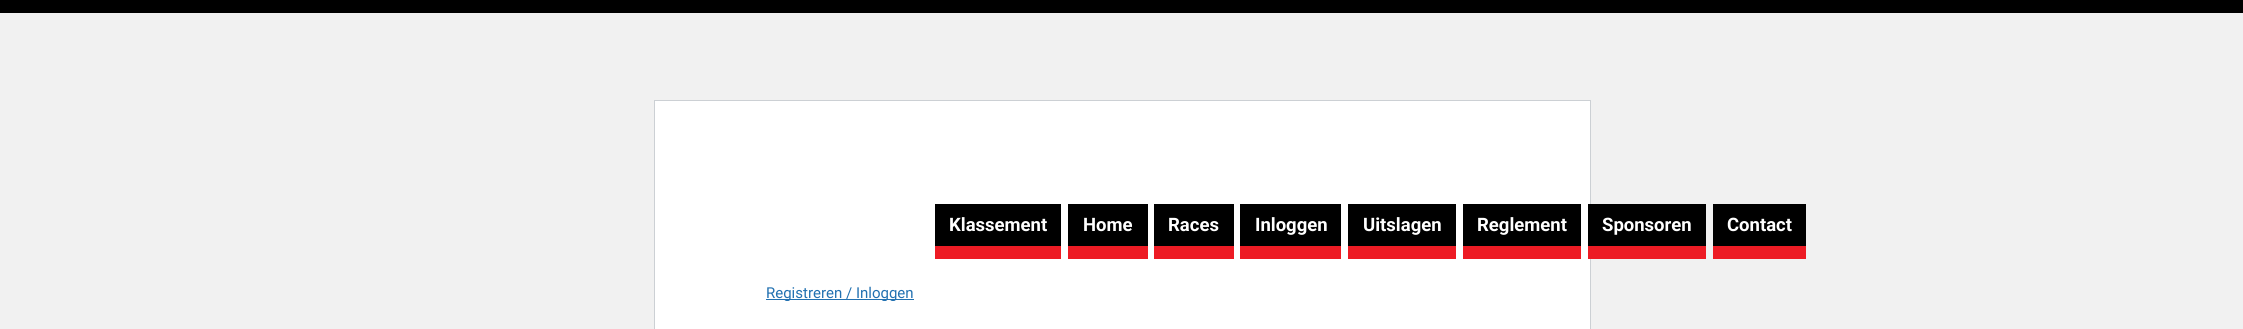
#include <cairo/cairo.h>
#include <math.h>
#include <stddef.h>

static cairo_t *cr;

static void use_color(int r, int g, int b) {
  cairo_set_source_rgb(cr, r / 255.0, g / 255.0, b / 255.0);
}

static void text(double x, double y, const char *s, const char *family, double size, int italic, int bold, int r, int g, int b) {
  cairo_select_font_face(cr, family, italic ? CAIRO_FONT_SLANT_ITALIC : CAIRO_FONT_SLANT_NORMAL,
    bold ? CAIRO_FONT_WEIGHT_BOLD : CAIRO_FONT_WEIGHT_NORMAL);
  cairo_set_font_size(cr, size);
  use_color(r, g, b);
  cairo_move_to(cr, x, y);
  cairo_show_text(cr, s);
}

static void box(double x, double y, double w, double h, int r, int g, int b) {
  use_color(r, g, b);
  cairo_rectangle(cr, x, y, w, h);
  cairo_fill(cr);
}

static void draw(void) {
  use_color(241, 241, 241);
  cairo_paint(cr);
  box(0, 0, 2243, 13, 0, 0, 0);
  use_color(255, 255, 255);
  cairo_rectangle(cr, 654.5, 100.5, 936, 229);
  cairo_fill_preserve(cr);
  use_color(204, 208, 212);
  cairo_set_line_width(cr, 1);
  cairo_stroke(cr);
  box(935, 204, 126, 42, 0, 0, 0);
  box(935, 246, 126, 13, 237, 27, 36);
  box(1068, 204, 80, 42, 0, 0, 0);
  box(1068, 246, 80, 13, 237, 27, 36);
  box(1154, 204, 80, 42, 0, 0, 0);
  box(1154, 246, 80, 13, 237, 27, 36);
  box(1240, 204, 101, 42, 0, 0, 0);
  box(1240, 246, 101, 13, 237, 27, 36);
  box(1348, 204, 108, 42, 0, 0, 0);
  box(1348, 246, 108, 13, 237, 27, 36);
  box(1463, 204, 118, 42, 0, 0, 0);
  box(1463, 246, 118, 13, 237, 27, 36);
  box(1588, 204, 118, 42, 0, 0, 0);
  box(1588, 246, 118, 13, 237, 27, 36);
  box(1713, 204, 93, 42, 0, 0, 0);
  box(1713, 246, 93, 13, 237, 27, 36);
  box(766, 299, 148, 1, 34, 113, 177);
  text(949, 231, "Klassement", "Roboto", 18.5, 0, 1, 255, 255, 255);
  text(1083, 231, "Home", "Roboto", 18.5, 0, 1, 255, 255, 255);
  text(1168, 231, "Races", "Roboto", 18.5, 0, 1, 255, 255, 255);
  text(1255, 231, "Inloggen", "Roboto", 18.5, 0, 1, 255, 255, 255);
  text(1363, 231, "Uitslagen", "Roboto", 18.5, 0, 1, 255, 255, 255);
  text(1477, 231, "Reglement", "Roboto", 18.5, 0, 1, 255, 255, 255);
  text(1602, 231, "Sponsoren", "Roboto", 18.5, 0, 1, 255, 255, 255);
  text(1727, 231, "Contact", "Roboto", 18.5, 0, 1, 255, 255, 255);
  cairo_save(cr);
  cairo_rectangle(cr, 685, 116, 1200, 185);
  cairo_clip(cr);
  text(766, 298, "Registreren / Inloggen", "Roboto", 15, 0, 0, 34, 113, 177);
  cairo_restore(cr);
}

int main(void) {
  cairo_surface_t *surface = cairo_image_surface_create(CAIRO_FORMAT_RGB24, 2243, 329);
  cr = cairo_create(surface);
  cairo_font_options_t *options = cairo_font_options_create();
  cairo_font_options_set_hint_metrics(options, CAIRO_HINT_METRICS_OFF);
  cairo_font_options_set_hint_style(options, CAIRO_HINT_STYLE_NONE);
  cairo_set_font_options(cr, options);
  cairo_set_miter_limit(cr, 4);
  draw();
  cairo_surface_write_to_png(surface, "out.png");
  cairo_font_options_destroy(options);
  cairo_destroy(cr);
  cairo_surface_destroy(surface);
  return 0;
}
